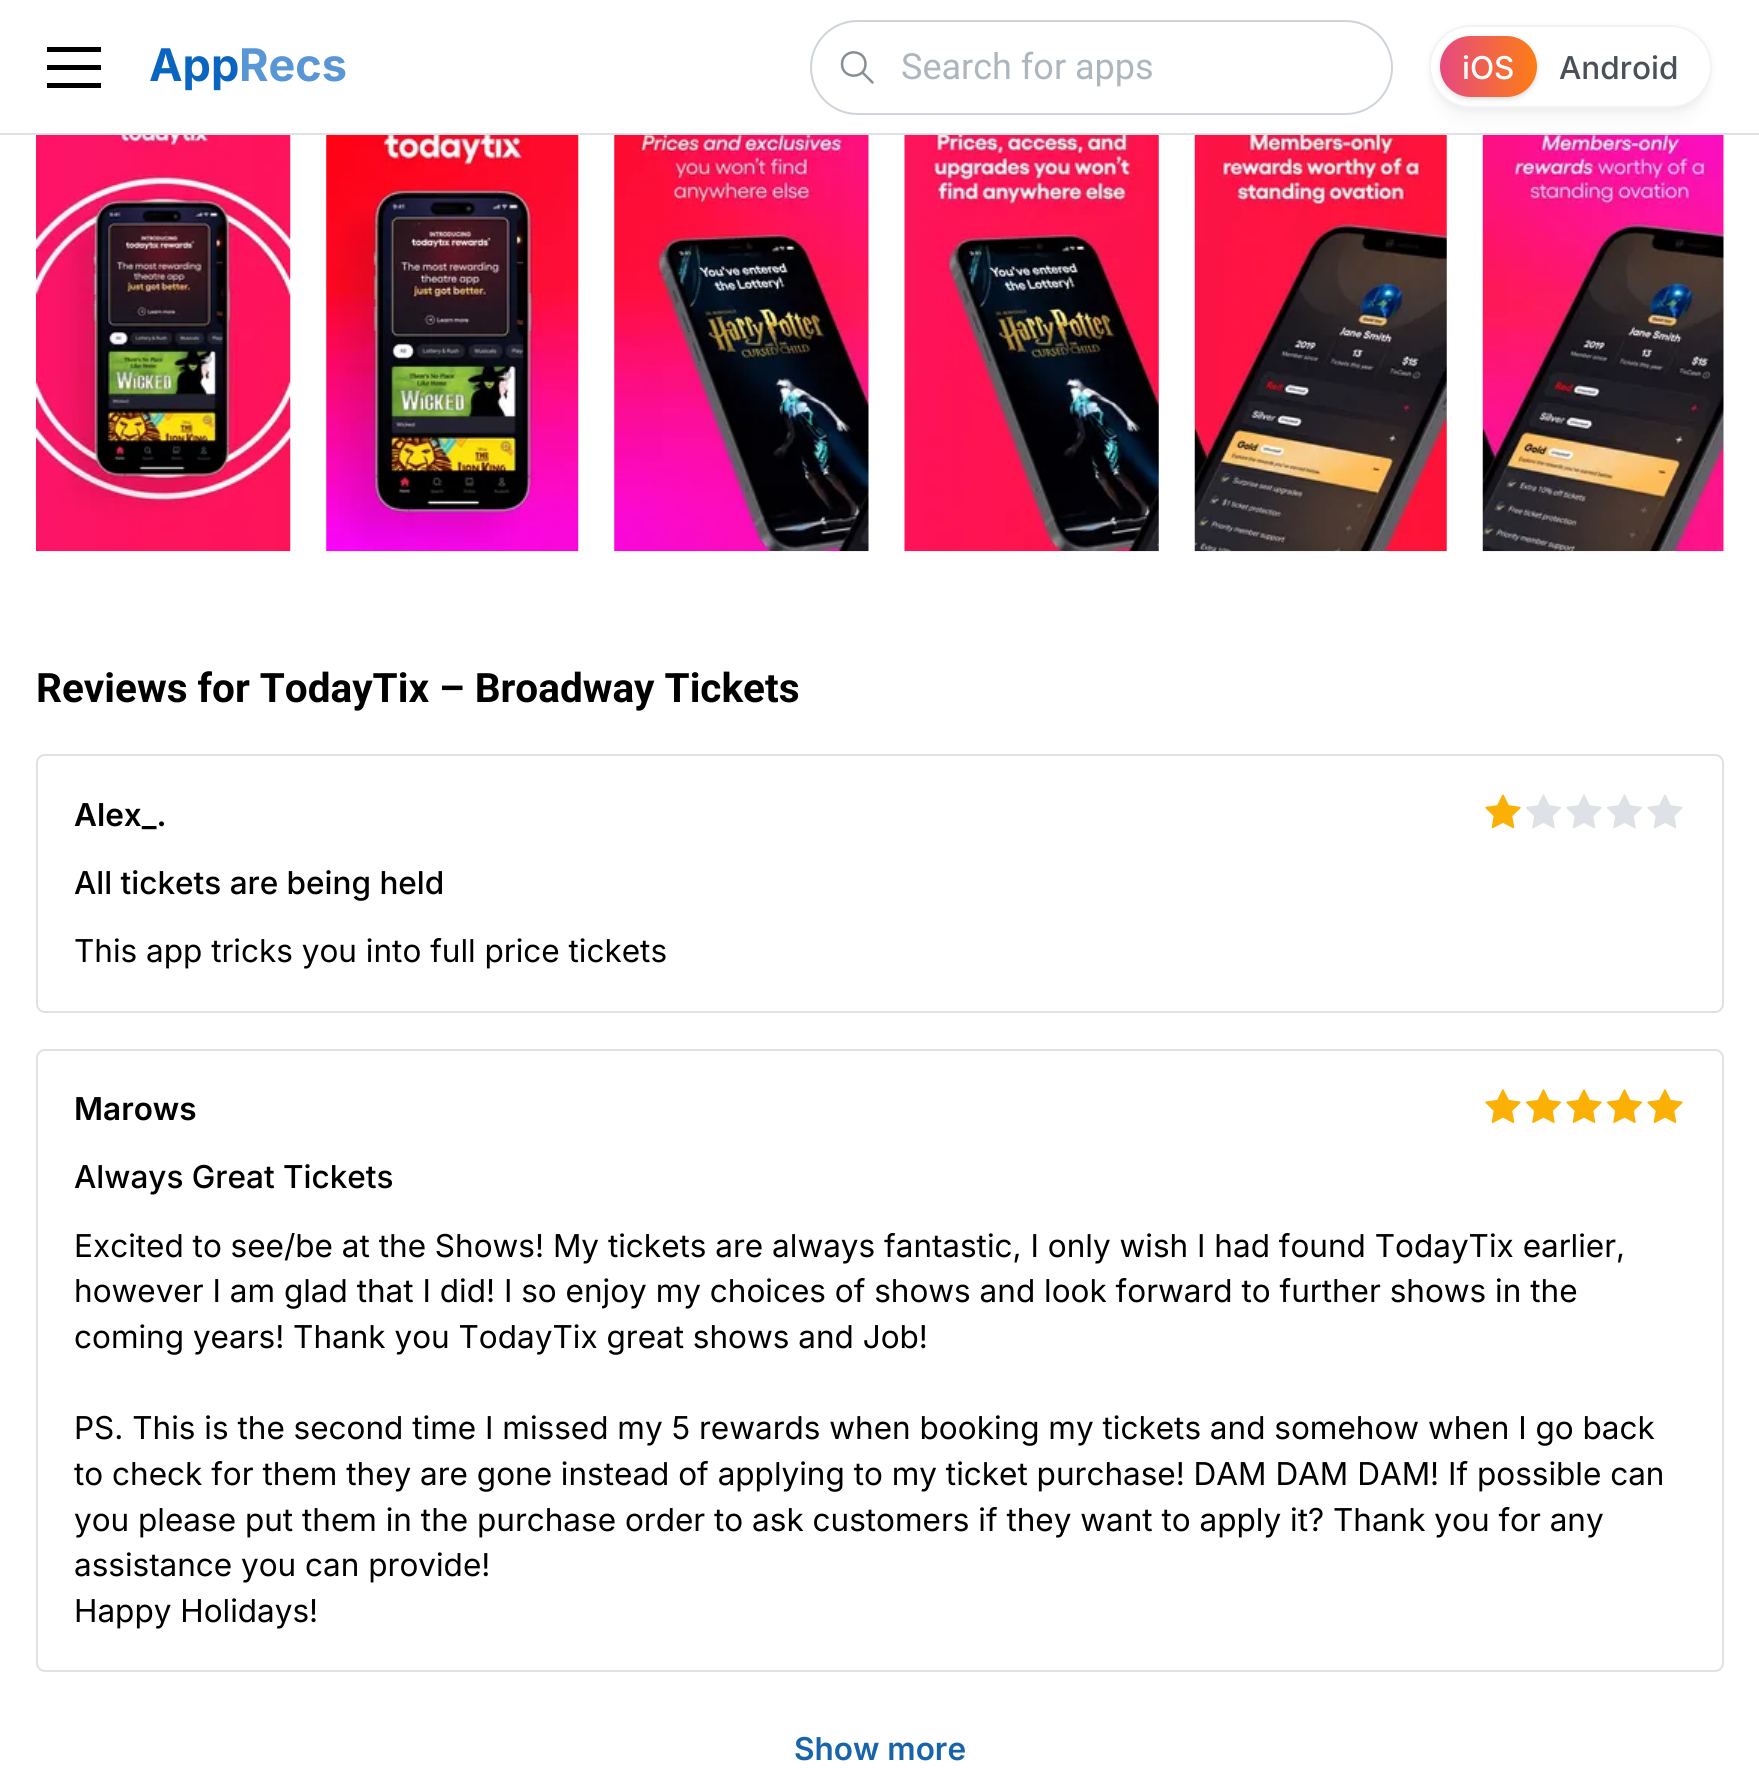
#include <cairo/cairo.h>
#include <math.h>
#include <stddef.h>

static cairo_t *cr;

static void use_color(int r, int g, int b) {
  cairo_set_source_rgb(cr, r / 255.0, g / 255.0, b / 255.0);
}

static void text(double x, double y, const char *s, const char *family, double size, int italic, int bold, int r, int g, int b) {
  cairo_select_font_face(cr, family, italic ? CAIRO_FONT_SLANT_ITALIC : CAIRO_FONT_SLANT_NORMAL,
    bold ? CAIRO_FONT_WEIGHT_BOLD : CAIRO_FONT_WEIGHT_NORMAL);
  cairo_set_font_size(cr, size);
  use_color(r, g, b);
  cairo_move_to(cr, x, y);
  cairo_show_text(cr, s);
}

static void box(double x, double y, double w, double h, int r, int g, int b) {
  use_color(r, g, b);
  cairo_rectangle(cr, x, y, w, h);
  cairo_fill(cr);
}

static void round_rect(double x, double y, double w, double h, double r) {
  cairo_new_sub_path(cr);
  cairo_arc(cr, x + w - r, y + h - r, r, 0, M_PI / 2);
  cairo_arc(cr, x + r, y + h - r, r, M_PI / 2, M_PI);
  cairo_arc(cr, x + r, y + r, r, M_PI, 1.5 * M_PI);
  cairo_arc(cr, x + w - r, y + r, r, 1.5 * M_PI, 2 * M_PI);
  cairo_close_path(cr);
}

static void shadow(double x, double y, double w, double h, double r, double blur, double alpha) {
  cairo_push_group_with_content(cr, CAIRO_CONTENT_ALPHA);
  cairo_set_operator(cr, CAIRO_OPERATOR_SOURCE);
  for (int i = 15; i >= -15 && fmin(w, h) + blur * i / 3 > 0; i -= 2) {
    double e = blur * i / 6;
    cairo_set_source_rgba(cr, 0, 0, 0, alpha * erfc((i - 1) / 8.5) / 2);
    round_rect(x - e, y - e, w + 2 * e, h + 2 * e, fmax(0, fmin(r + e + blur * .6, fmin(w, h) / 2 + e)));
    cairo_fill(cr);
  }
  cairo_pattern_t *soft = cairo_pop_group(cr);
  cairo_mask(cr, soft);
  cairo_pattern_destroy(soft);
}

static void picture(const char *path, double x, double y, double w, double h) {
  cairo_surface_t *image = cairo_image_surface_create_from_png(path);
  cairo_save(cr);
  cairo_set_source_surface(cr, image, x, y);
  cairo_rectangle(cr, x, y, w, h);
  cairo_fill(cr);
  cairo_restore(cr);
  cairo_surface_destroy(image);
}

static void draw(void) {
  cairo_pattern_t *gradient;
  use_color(255, 255, 255);
  cairo_paint(cr);
  box(0, 133, 1759, 2, 222, 226, 230);
  box(47, 65, 54, 5, 0, 0, 0);
  box(47, 47, 54, 5, 0, 0, 0);
  box(47, 83, 54, 5, 0, 0, 0);
  round_rect(811, 21, 581, 93, 46.5);
  use_color(206, 212, 218);
  cairo_stroke(cr);
  cairo_new_path(cr);
  cairo_move_to(cr, 842, 64);
  cairo_curve_to(cr, 842, 79.5, 865.5, 79.5, 865.5, 64);
  cairo_curve_to(cr, 865.5, 48.5, 842, 48.5, 842, 64);
  cairo_move_to(cr, 872.5, 82.5);
  cairo_line_to(cr, 862.5, 72.5);
  use_color(134, 142, 150);
  cairo_set_line_width(cr, 2.5);
  cairo_set_line_cap(cr, CAIRO_LINE_CAP_ROUND);
  cairo_set_line_join(cr, CAIRO_LINE_JOIN_ROUND);
  cairo_stroke(cr);
  picture("img_05.png", 1194, 135, 253, 417);
  picture("img_06.png", 1482, 135, 242, 417);
  use_color(0, 0, 0);
  shadow(1440, 59, 261, 60, 30, 11, 0.04);
  shadow(1429, 27, 283, 83, 41.5, 3.5, 0.05);
  use_color(255, 255, 255);
  round_rect(1430, 26, 281, 81, 40.5);
  cairo_fill_preserve(cr);
  use_color(241, 243, 245);
  cairo_set_line_width(cr, 2);
  cairo_set_line_cap(cr, CAIRO_LINE_CAP_BUTT);
  cairo_set_line_join(cr, CAIRO_LINE_JOIN_MITER);
  cairo_stroke(cr);
  use_color(0, 0, 0);
  shadow(1440, 38, 97, 61, 30.5, 2, 0.1);
  shadow(1440, 38, 97, 61, 30.5, 3.5, 0.05);
  gradient = cairo_pattern_create_linear(1440, 66, 1537, 66);
  cairo_pattern_add_color_stop_rgba(gradient, 0, 0.902, 0.286, 0.502, 1);
  cairo_pattern_add_color_stop_rgba(gradient, 1, 0.992, 0.494, 0.078, 1);
  cairo_set_source(cr, gradient);
  cairo_pattern_destroy(gradient);
  round_rect(1440, 36, 97, 61, 30.5);
  cairo_fill(cr);
  picture("img_01.png", 36, 135, 255, 417);
  picture("img_02.png", 326, 135, 253, 417);
  picture("img_03.png", 614, 135, 255, 417);
  picture("img_04.png", 904, 135, 255, 417);
  round_rect(37, 755, 1686, 257, 8);
  use_color(222, 226, 230);
  cairo_stroke(cr);
  picture("img_07.png", 1485, 794, 36, 35);
  picture("img_08.png", 1525, 794, 36, 35);
  picture("img_09.png", 1566, 794, 36, 35);
  picture("img_08.png", 1606, 794, 36, 35);
  picture("img_09.png", 1647, 794, 36, 35);
  round_rect(37, 1050, 1686, 621, 8);
  cairo_stroke(cr);
  picture("img_10.png", 1485, 1089, 36, 34);
  picture("img_11.png", 1525, 1089, 37, 34);
  picture("img_10.png", 1566, 1089, 36, 34);
  picture("img_11.png", 1606, 1089, 37, 34);
  picture("img_10.png", 1647, 1089, 36, 34);
  text(149, 81, "App", "Inter", 45, 0, 1, 10, 101, 193);
  text(239, 81, "Recs", "Inter", 45, 0, 1, 88, 150, 213);
  text(901, 79, "Search for apps", "Roboto", 36, 0, 0, 173, 181, 189);
  text(1462, 79, "iOS", "Inter Medium", 31.5, 0, 0, 255, 255, 255);
  text(1559, 79, "Android", "Inter Medium", 31.5, 0, 0, 73, 80, 87);
  text(36, 702, "Reviews for TodayTix – Broadway Tickets", "Roboto", 40.5, 0, 1, 0, 0, 0);
  text(74, 826, "Alex_.", "Inter SemiBold", 31.5, 0, 0, 0, 0, 0);
  text(74, 894, "All tickets are being held", "Inter Medium", 31.5, 0, 0, 0, 0, 0);
  text(74, 962, "This app tricks you into full price tickets", "Inter", 31.5, 0, 0, 0, 0, 0);
  text(74, 1120, "Marows", "Inter SemiBold", 31.5, 0, 0, 0, 0, 0);
  text(74, 1188, "Always Great Tickets", "Inter Medium", 31.5, 0, 0, 0, 0, 0);
  text(74, 1257, "Excited to see/be at the Shows! My tickets are always fantastic, I only wish I had found TodayTix earlier,", "Inter", 31.5, 0, 0, 0, 0, 0);
  text(74, 1302, "however I am glad that I did! I so enjoy my choices of shows and look forward to further shows in the", "Inter", 31.5, 0, 0, 0, 0, 0);
  text(74, 1348, "coming years! Thank you TodayTix great shows and Job!", "Inter", 31.5, 0, 0, 0, 0, 0);
  text(74, 1439, "PS. This is the second time I missed my 5 rewards when booking my tickets and somehow when I go back", "Inter", 31.5, 0, 0, 0, 0, 0);
  text(74, 1485, "to check for them they are gone instead of applying to my ticket purchase! DAM DAM DAM! If possible can", "Inter", 31.5, 0, 0, 0, 0, 0);
  text(74, 1531, "you please put them in the purchase order to ask customers if they want to apply it? Thank you for any", "Inter", 31.5, 0, 0, 0, 0, 0);
  text(74, 1576, "assistance you can provide!", "Inter", 31.5, 0, 0, 0, 0, 0);
  text(74, 1622, "Happy Holidays!", "Inter", 31.5, 0, 0, 0, 0, 0);
  text(794, 1760, "Show more", "Inter SemiBold", 31.5, 0, 0, 24, 100, 171);
}

int main(void) {
  cairo_surface_t *surface = cairo_image_surface_create(CAIRO_FORMAT_RGB24, 1759, 1788);
  cr = cairo_create(surface);
  cairo_font_options_t *options = cairo_font_options_create();
  cairo_font_options_set_hint_metrics(options, CAIRO_HINT_METRICS_OFF);
  cairo_font_options_set_hint_style(options, CAIRO_HINT_STYLE_NONE);
  cairo_set_font_options(cr, options);
  cairo_set_miter_limit(cr, 4);
  draw();
  cairo_surface_write_to_png(surface, "out.png");
  cairo_font_options_destroy(options);
  cairo_destroy(cr);
  cairo_surface_destroy(surface);
  return 0;
}
